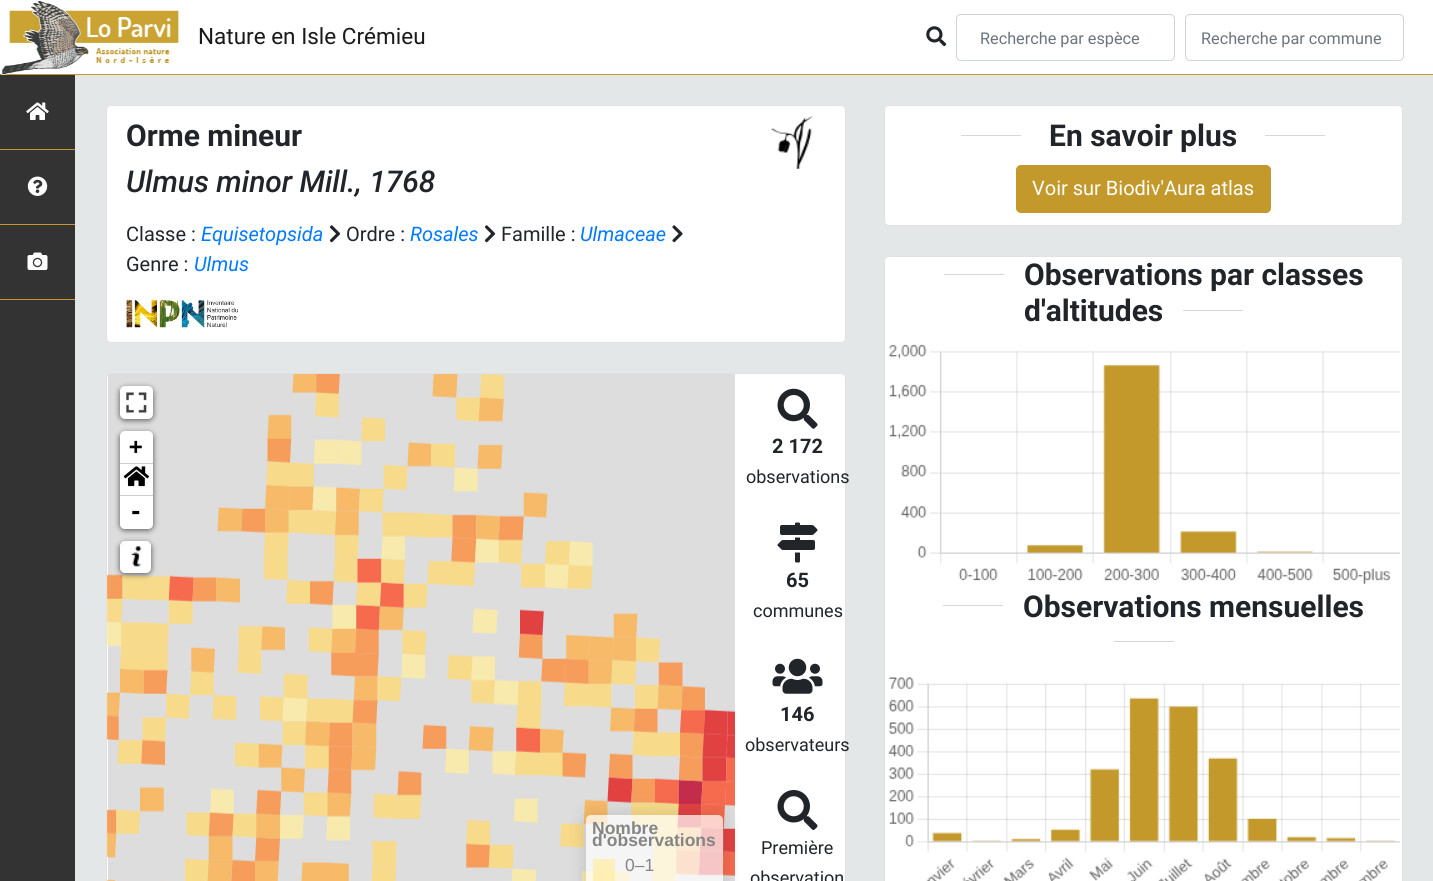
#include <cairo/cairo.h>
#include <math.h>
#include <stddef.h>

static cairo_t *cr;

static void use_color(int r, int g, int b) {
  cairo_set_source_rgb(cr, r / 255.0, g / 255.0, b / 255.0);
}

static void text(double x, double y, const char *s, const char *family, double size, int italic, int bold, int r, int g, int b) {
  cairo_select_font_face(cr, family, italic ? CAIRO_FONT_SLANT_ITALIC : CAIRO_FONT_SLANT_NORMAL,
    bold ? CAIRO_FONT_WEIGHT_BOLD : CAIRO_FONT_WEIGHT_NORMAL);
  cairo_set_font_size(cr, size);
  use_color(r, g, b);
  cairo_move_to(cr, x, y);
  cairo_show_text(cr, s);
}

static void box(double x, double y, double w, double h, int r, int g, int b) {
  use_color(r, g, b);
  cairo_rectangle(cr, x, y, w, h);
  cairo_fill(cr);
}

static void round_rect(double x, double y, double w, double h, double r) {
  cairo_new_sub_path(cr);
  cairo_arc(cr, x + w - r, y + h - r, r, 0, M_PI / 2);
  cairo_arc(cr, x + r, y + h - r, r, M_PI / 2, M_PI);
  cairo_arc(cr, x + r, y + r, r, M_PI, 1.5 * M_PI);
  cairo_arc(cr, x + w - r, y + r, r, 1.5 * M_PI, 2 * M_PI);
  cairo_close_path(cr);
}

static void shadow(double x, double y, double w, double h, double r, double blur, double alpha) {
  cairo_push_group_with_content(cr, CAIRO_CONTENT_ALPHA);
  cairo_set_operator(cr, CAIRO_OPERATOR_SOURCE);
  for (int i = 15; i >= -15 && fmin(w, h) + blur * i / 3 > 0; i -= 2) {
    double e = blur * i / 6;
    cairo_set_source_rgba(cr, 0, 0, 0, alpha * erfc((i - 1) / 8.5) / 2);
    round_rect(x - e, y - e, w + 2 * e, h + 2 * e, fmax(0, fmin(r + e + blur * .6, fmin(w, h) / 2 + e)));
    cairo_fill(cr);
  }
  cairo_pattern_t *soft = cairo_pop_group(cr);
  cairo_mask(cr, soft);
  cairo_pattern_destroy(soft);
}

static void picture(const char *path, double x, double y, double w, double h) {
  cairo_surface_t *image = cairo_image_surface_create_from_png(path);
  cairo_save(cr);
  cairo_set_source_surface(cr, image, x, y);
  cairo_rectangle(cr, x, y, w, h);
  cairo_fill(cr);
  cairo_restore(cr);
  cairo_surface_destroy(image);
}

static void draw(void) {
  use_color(227, 231, 232);
  cairo_paint(cr);
  box(0, 0, 1433, 74, 255, 255, 255);
  box(0, 74, 1433, 1, 195, 153, 44);
  picture("img_01.png", 1, 1, 178, 74);
  picture("img_02.png", 926, 26, 21, 21);
  round_rect(956.5, 14.5, 218, 46, 4.5);
  use_color(206, 212, 218);
  cairo_set_line_width(cr, 1);
  cairo_stroke(cr);
  round_rect(1185.5, 14.5, 218, 46, 4.5);
  cairo_stroke(cr);
  box(0, 75, 75, 806, 51, 51, 51);
  box(0, 149, 75, 1, 195, 153, 44);
  picture("img_03.png", 26, 102, 23, 18);
  box(0, 224, 75, 1, 195, 153, 44);
  picture("img_04.png", 27, 176, 21, 20);
  box(0, 299, 75, 1, 195, 153, 44);
  picture("img_05.png", 27, 252, 21, 18);
  use_color(255, 255, 255);
  round_rect(106, 105, 740, 238, 5);
  cairo_fill(cr);
  round_rect(106.5, 105.5, 739, 237, 4.5);
  cairo_set_source_rgba(cr, 0, 0, 0, 0.12);
  cairo_stroke(cr);
  picture("img_06.png", 329, 225, 12, 18);
  picture("img_06.png", 484, 225, 12, 18);
  picture("img_07.png", 672, 225, 11, 18);
  picture("img_08.png", 126, 300, 112, 28);
  picture("img_09.png", 771, 116, 42, 53);
  use_color(255, 255, 255);
  round_rect(106, 373, 740, 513, 5);
  cairo_fill(cr);
  round_rect(106.5, 373.5, 739, 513, 4.5);
  cairo_set_source_rgba(cr, 0, 0, 0, 0.12);
  cairo_stroke(cr);
  box(108, 374, 627, 507, 221, 221, 221);
  picture("img_10.png", 107, 374, 628, 507);
  use_color(0, 0, 0);
  shadow(120, 388, 33, 32, 5, 3, 0.65);
  use_color(255, 255, 255);
  round_rect(120, 386, 33, 33, 5);
  cairo_fill(cr);
  picture("img_11.png", 126, 392, 21, 21);
  use_color(0, 0, 0);
  shadow(120, 433, 33, 97, 5, 3, 0.65);
  use_color(255, 255, 255);
  cairo_new_path(cr);
  cairo_move_to(cr, 125, 431);
  cairo_line_to(cr, 148, 431);
  cairo_curve_to(cr, 151, 431, 153, 433, 153, 436);
  cairo_line_to(cr, 153, 464);
  cairo_line_to(cr, 120, 464);
  cairo_line_to(cr, 120, 436);
  cairo_curve_to(cr, 120, 433, 122, 431, 125, 431);
  cairo_close_path(cr);
  cairo_fill(cr);
  box(120, 463, 33, 1, 204, 204, 204);
  box(120, 464, 33, 31, 255, 255, 255);
  box(120, 495, 33, 1, 204, 204, 204);
  picture("img_12.png", 123, 466, 26, 21);
  use_color(255, 255, 255);
  cairo_new_path(cr);
  cairo_move_to(cr, 120, 496);
  cairo_line_to(cr, 153, 496);
  cairo_line_to(cr, 153, 524);
  cairo_curve_to(cr, 153, 527, 151, 529, 148, 529);
  cairo_line_to(cr, 125, 529);
  cairo_curve_to(cr, 122, 529, 120, 527, 120, 524);
  cairo_close_path(cr);
  cairo_fill(cr);
  use_color(0, 0, 0);
  shadow(120, 543, 31, 31, 5, 3, 0.65);
  use_color(255, 255, 255);
  round_rect(120.5, 541.5, 30, 31, 4.5);
  cairo_fill_preserve(cr);
  cairo_stroke(cr);
  picture("img_13.png", 131, 546, 11, 21);
  cairo_save(cr);
  cairo_set_fill_rule(cr, CAIRO_FILL_RULE_EVEN_ODD);
  cairo_new_path(cr);
  cairo_move_to(cr, 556, 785);
  cairo_line_to(cr, 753, 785);
  cairo_line_to(cr, 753, 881);
  cairo_line_to(cr, 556, 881);
  cairo_close_path(cr);
  cairo_move_to(cr, 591, 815);
  cairo_line_to(cr, 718, 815);
  cairo_curve_to(cr, 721, 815, 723, 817, 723, 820);
  cairo_line_to(cr, 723, 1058);
  cairo_curve_to(cr, 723, 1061, 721, 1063, 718, 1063);
  cairo_line_to(cr, 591, 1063);
  cairo_curve_to(cr, 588, 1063, 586, 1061, 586, 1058);
  cairo_line_to(cr, 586, 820);
  cairo_curve_to(cr, 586, 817, 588, 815, 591, 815);
  cairo_close_path(cr);
  cairo_clip(cr);
  use_color(0, 0, 0);
  shadow(586, 815, 137, 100, 5, 9.5, 0.14);
  cairo_restore(cr);
  cairo_set_source_rgba(cr, 1, 1, 1, 0.7);
  round_rect(586, 815, 137, 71, 5);
  cairo_fill(cr);
  cairo_set_source_rgba(cr, 1, 0.929, 0.627, 0.7);
  cairo_rectangle(cr, 593, 859, 22, 22);
  cairo_fill(cr);
  picture("img_14.png", 777, 388, 41, 41);
  picture("img_15.png", 777, 522, 41, 41);
  picture("img_16.png", 772, 658, 51, 36);
  picture("img_17.png", 777, 790, 41, 40);
  use_color(255, 255, 255);
  round_rect(884, 105, 519, 121, 5);
  cairo_fill(cr);
  round_rect(884.5, 105.5, 518, 120, 4.5);
  cairo_set_source_rgba(cr, 0, 0, 0, 0.12);
  cairo_stroke(cr);
  box(961, 135, 60, 1, 215, 215, 215);
  box(1265, 135, 60, 1, 215, 215, 215);
  use_color(195, 153, 44);
  round_rect(1016.5, 165.5, 254, 47, 4.5);
  cairo_fill_preserve(cr);
  cairo_stroke(cr);
  use_color(255, 255, 255);
  round_rect(884, 256, 519, 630, 5);
  cairo_fill(cr);
  round_rect(884.5, 256.5, 518, 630, 4.5);
  cairo_set_source_rgba(cr, 0, 0, 0, 0.12);
  cairo_stroke(cr);
  box(944, 274, 60, 1, 215, 215, 215);
  box(1183, 310, 60, 1, 215, 215, 215);
  picture("img_18.png", 888, 344, 512, 240);
  box(943, 605, 60, 1, 215, 215, 215);
  box(1114, 641, 60, 1, 215, 215, 215);
  picture("img_19.png", 888, 677, 512, 204);
  text(198, 44, "Nature en Isle Crémieu", "Roboto", 22.5, 0, 0, 26, 26, 26);
  text(980, 44, "Recherche par espèce", "Roboto", 16.25, 0, 0, 108, 117, 125);
  text(1201, 44, "Recherche par commune", "Roboto", 16.25, 0, 0, 108, 117, 125);
  text(126, 146, "Orme mineur", "Roboto", 30, 0, 1, 33, 37, 41);
  text(126, 192, "Ulmus minor Mill., 1768", "Roboto Medium", 30, 1, 0, 33, 37, 41);
  text(126, 241, "Classe :", "Roboto", 20, 0, 0, 33, 37, 41);
  text(201, 241, "Equisetopsida", "Roboto", 20, 1, 0, 0, 123, 255);
  text(346, 241, "Ordre :", "Roboto", 20, 0, 0, 33, 37, 41);
  text(410, 241, "Rosales", "Roboto", 20, 1, 0, 0, 123, 255);
  text(501, 241, "Famille :", "Roboto", 20, 0, 0, 33, 37, 41);
  text(580, 241, "Ulmaceae", "Roboto", 20, 1, 0, 0, 123, 255);
  text(126, 271, "Genre :", "Roboto", 20, 0, 0, 33, 37, 41);
  text(194, 271, "Ulmus", "Roboto", 20, 1, 0, 0, 123, 255);
  text(129, 454, "+", "DejaVu Sans Mono", 22.5, 0, 1, 0, 0, 0);
  text(129, 519, "-", "DejaVu Sans Mono", 22.5, 0, 1, 0, 0, 0);
  text(592, 834, "Nombre", "Liberation Sans", 17.5, 0, 1, 133, 133, 131);
  text(592, 846, "d'observations", "Liberation Sans", 17.5, 0, 1, 133, 133, 131);
  text(625, 871, "0–1", "Liberation Sans", 17.5, 0, 0, 133, 133, 131);
  text(772, 453, "2 172", "Roboto", 20, 0, 1, 33, 37, 41);
  text(746, 483, "observations", "Roboto", 18, 0, 0, 33, 37, 41);
  text(786, 587, "65", "Roboto", 20, 0, 1, 33, 37, 41);
  text(753, 617, "communes", "Roboto", 18, 0, 0, 33, 37, 41);
  text(780, 721, "146", "Roboto", 20, 0, 1, 33, 37, 41);
  text(745, 751, "observateurs", "Roboto", 18, 0, 0, 33, 37, 41);
  text(761, 854, "Première", "Roboto", 18, 0, 0, 33, 37, 41);
  text(750, 884, "observation", "Roboto", 18, 0, 0, 33, 37, 41);
  text(1049, 146, "En savoir plus", "Roboto", 30, 0, 1, 33, 37, 41);
  text(1032, 195, "Voir sur Biodiv'Aura atlas", "Roboto", 20, 0, 0, 255, 255, 255);
  text(1024, 285, "Observations par classes", "Roboto", 30, 0, 1, 33, 37, 41);
  text(1024, 321, "d'altitudes", "Roboto", 30, 0, 1, 33, 37, 41);
  text(1023, 617, "Observations mensuelles", "Roboto", 30, 0, 1, 33, 37, 41);
}

int main(void) {
  cairo_surface_t *surface = cairo_image_surface_create(CAIRO_FORMAT_RGB24, 1433, 881);
  cr = cairo_create(surface);
  cairo_font_options_t *options = cairo_font_options_create();
  cairo_font_options_set_hint_metrics(options, CAIRO_HINT_METRICS_OFF);
  cairo_font_options_set_hint_style(options, CAIRO_HINT_STYLE_NONE);
  cairo_set_font_options(cr, options);
  cairo_set_miter_limit(cr, 4);
  draw();
  cairo_surface_write_to_png(surface, "out.png");
  cairo_font_options_destroy(options);
  cairo_destroy(cr);
  cairo_surface_destroy(surface);
  return 0;
}
